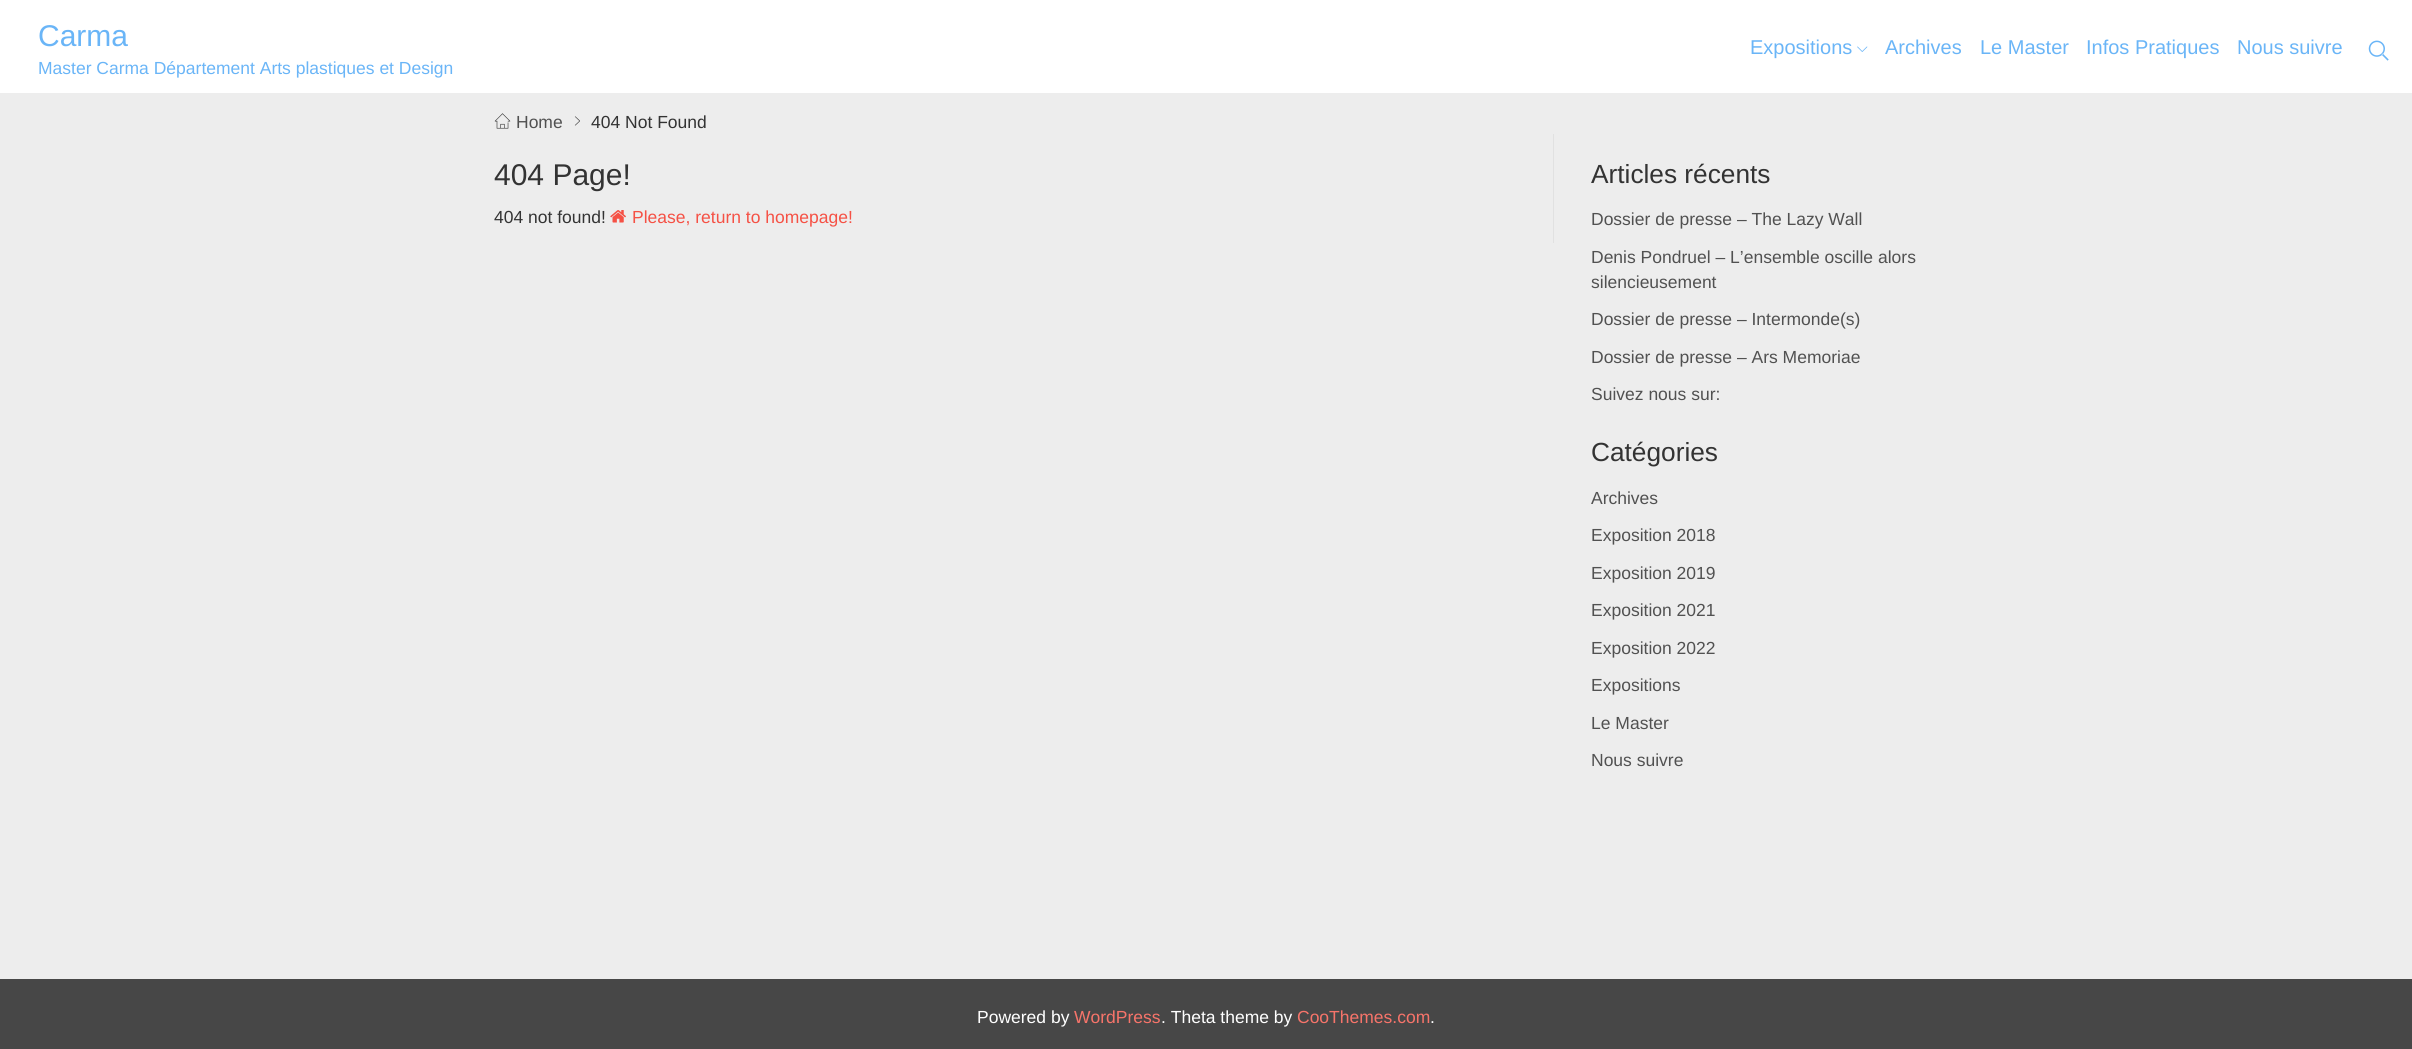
#include <cairo/cairo.h>
#include <math.h>
#include <stddef.h>

static cairo_t *cr;

static void use_color(int r, int g, int b) {
  cairo_set_source_rgb(cr, r / 255.0, g / 255.0, b / 255.0);
}

static void text(double x, double y, const char *s, const char *family, double size, int italic, int bold, int r, int g, int b) {
  cairo_select_font_face(cr, family, italic ? CAIRO_FONT_SLANT_ITALIC : CAIRO_FONT_SLANT_NORMAL,
    bold ? CAIRO_FONT_WEIGHT_BOLD : CAIRO_FONT_WEIGHT_NORMAL);
  cairo_set_font_size(cr, size);
  use_color(r, g, b);
  cairo_move_to(cr, x, y);
  cairo_show_text(cr, s);
}

static void box(double x, double y, double w, double h, int r, int g, int b) {
  use_color(r, g, b);
  cairo_rectangle(cr, x, y, w, h);
  cairo_fill(cr);
}

static void picture(const char *path, double x, double y, double w, double h) {
  cairo_surface_t *image = cairo_image_surface_create_from_png(path);
  cairo_save(cr);
  cairo_set_source_surface(cr, image, x, y);
  cairo_rectangle(cr, x, y, w, h);
  cairo_fill(cr);
  cairo_restore(cr);
  cairo_surface_destroy(image);
}

static void draw(void) {
  use_color(237, 237, 237);
  cairo_paint(cr);
  box(0, 0, 2412, 93, 255, 255, 255);
  picture("img_01.png", 1857, 46, 11, 6);
  picture("img_02.png", 2368, 40, 21, 21);
  picture("img_03.png", 494, 113, 17, 16);
  picture("img_04.png", 574, 116, 6, 10);
  box(1553, 134, 1, 109, 225, 225, 225);
  picture("img_05.png", 610, 210, 16, 13);
  box(0, 979, 2412, 70, 71, 71, 71);
  text(38, 46, "Carma", "Liberation Sans", 30, 0, 0, 106, 181, 247);
  text(38, 74, "Master Carma Département Arts plastiques et Design", "Liberation Sans", 17.5, 0, 0, 106, 181, 247);
  text(1750, 54, "Expositions", "Liberation Sans", 20, 0, 0, 106, 181, 247);
  text(1885, 54, "Archives", "Liberation Sans", 20, 0, 0, 106, 181, 247);
  text(1980, 54, "Le Master", "Liberation Sans", 20, 0, 0, 106, 181, 247);
  text(2086, 54, "Infos Pratiques", "Liberation Sans", 20, 0, 0, 106, 181, 247);
  text(2237, 54, "Nous suivre", "Liberation Sans", 20, 0, 0, 106, 181, 247);
  text(516, 128, "Home", "Liberation Sans", 17.5, 0, 0, 81, 81, 81);
  text(591, 128, "404 Not Found", "Liberation Sans", 17.5, 0, 0, 51, 51, 51);
  text(494, 185, "404 Page!", "Liberation Sans", 30, 0, 0, 51, 51, 51);
  text(494, 223, "404 not found!", "Liberation Sans", 17.5, 0, 0, 51, 51, 51);
  text(632, 223, "Please, return to homepage!", "Liberation Sans", 17.5, 0, 0, 245, 81, 69);
  text(1591, 183, "Articles récents", "Liberation Sans", 26.25, 0, 0, 51, 51, 51);
  text(1591, 225, "Dossier de presse – The Lazy Wall", "Liberation Sans", 17.5, 0, 0, 81, 81, 81);
  text(1591, 263, "Denis Pondruel – L’ensemble oscille alors", "Liberation Sans", 17.5, 0, 0, 81, 81, 81);
  text(1591, 288, "silencieusement", "Liberation Sans", 17.5, 0, 0, 81, 81, 81);
  text(1591, 325, "Dossier de presse – Intermonde(s)", "Liberation Sans", 17.5, 0, 0, 81, 81, 81);
  text(1591, 363, "Dossier de presse – Ars Memoriae", "Liberation Sans", 17.5, 0, 0, 81, 81, 81);
  text(1591, 400, "Suivez nous sur:", "Liberation Sans", 17.5, 0, 0, 81, 81, 81);
  text(1591, 461, "Catégories", "Liberation Sans", 26.25, 0, 0, 51, 51, 51);
  text(1591, 504, "Archives", "Liberation Sans", 17.5, 0, 0, 81, 81, 81);
  text(1591, 541, "Exposition 2018", "Liberation Sans", 17.5, 0, 0, 81, 81, 81);
  text(1591, 579, "Exposition 2019", "Liberation Sans", 17.5, 0, 0, 81, 81, 81);
  text(1591, 616, "Exposition 2021", "Liberation Sans", 17.5, 0, 0, 81, 81, 81);
  text(1591, 654, "Exposition 2022", "Liberation Sans", 17.5, 0, 0, 81, 81, 81);
  text(1591, 691, "Expositions", "Liberation Sans", 17.5, 0, 0, 81, 81, 81);
  text(1591, 729, "Le Master", "Liberation Sans", 17.5, 0, 0, 81, 81, 81);
  text(1591, 766, "Nous suivre", "Liberation Sans", 17.5, 0, 0, 81, 81, 81);
  text(977, 1023, "Powered by", "Liberation Sans", 17.5, 0, 0, 255, 255, 255);
  text(1074, 1023, "WordPress", "Liberation Sans", 17.5, 0, 0, 247, 116, 106);
  text(1161, 1023, ". Theta theme by", "Liberation Sans", 17.5, 0, 0, 255, 255, 255);
  text(1297, 1023, "CooThemes.com", "Liberation Sans", 17.5, 0, 0, 247, 116, 106);
  text(1430, 1023, ".", "Liberation Sans", 17.5, 0, 0, 255, 255, 255);
}

int main(void) {
  cairo_surface_t *surface = cairo_image_surface_create(CAIRO_FORMAT_RGB24, 2412, 1049);
  cr = cairo_create(surface);
  cairo_font_options_t *options = cairo_font_options_create();
  cairo_font_options_set_hint_metrics(options, CAIRO_HINT_METRICS_OFF);
  cairo_font_options_set_hint_style(options, CAIRO_HINT_STYLE_NONE);
  cairo_set_font_options(cr, options);
  cairo_set_miter_limit(cr, 4);
  draw();
  cairo_surface_write_to_png(surface, "out.png");
  cairo_font_options_destroy(options);
  cairo_destroy(cr);
  cairo_surface_destroy(surface);
  return 0;
}
